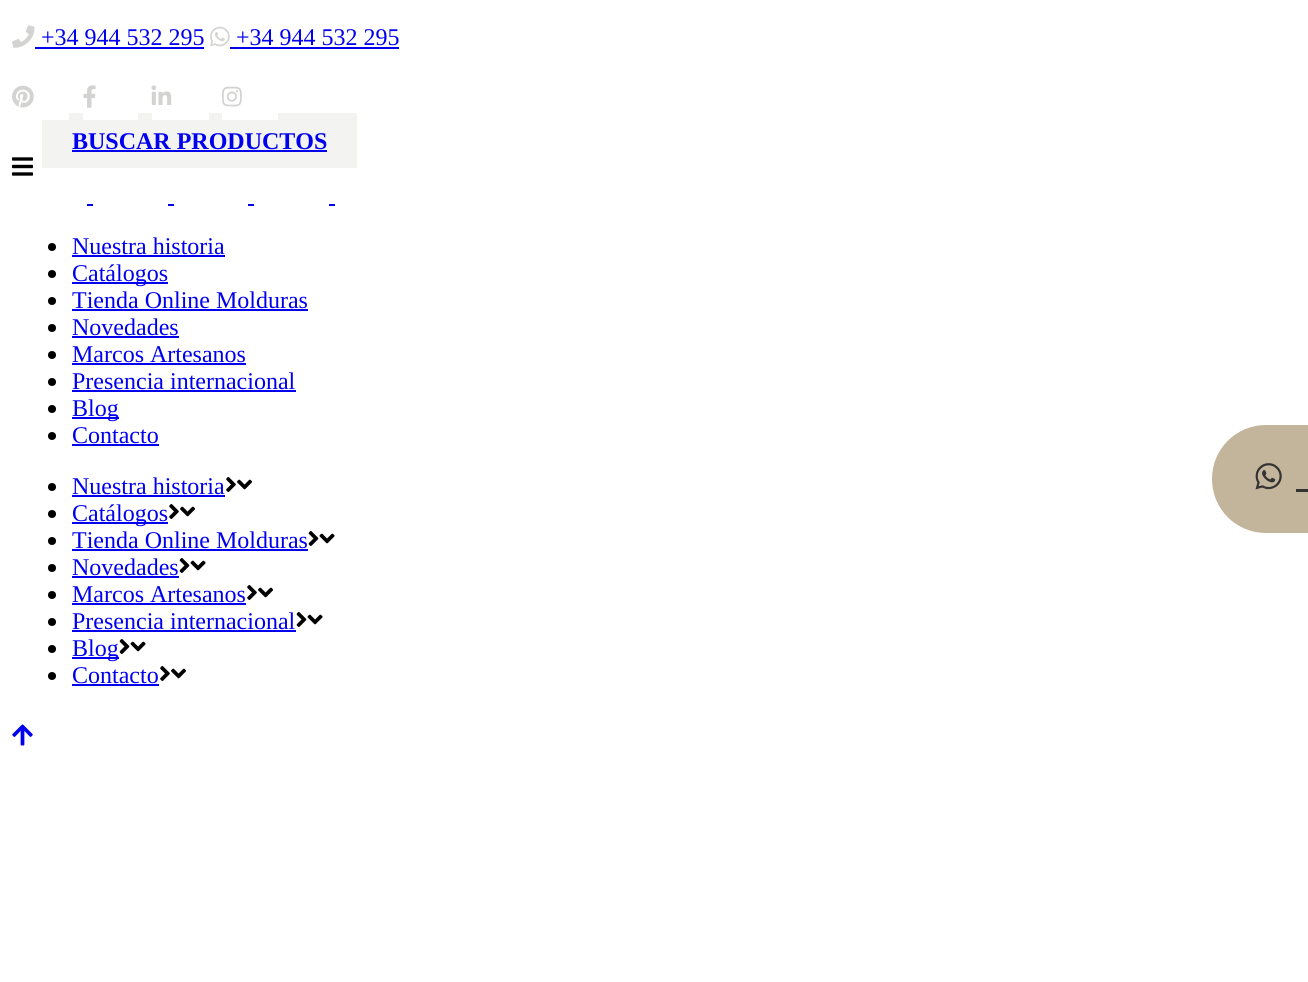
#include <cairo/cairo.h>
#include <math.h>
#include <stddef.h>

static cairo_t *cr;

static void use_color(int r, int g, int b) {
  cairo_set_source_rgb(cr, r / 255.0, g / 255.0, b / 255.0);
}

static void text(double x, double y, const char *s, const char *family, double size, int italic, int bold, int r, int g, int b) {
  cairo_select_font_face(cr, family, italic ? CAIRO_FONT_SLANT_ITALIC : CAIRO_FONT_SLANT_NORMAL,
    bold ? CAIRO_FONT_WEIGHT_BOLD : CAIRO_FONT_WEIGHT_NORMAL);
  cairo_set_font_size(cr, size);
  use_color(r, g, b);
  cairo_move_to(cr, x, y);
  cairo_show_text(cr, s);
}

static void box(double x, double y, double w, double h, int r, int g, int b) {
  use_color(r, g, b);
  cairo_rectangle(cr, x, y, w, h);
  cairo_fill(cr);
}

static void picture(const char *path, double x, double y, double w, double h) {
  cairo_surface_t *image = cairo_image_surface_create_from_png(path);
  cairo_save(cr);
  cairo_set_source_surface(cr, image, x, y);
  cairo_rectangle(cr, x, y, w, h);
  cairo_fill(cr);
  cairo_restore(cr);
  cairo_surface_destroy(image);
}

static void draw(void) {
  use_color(255, 255, 255);
  cairo_paint(cr);
  picture("img_01.png", 12, 25, 23, 23);
  box(35, 47, 169, 2, 0, 0, 238);
  picture("img_02.png", 210, 26, 20, 21);
  box(230, 47, 169, 2, 0, 0, 238);
  box(42, 113, 315, 55, 243, 243, 241);
  box(42, 113, 27, 7, 255, 255, 255);
  picture("img_03.png", 12, 85, 22, 23);
  box(83, 113, 55, 7, 255, 255, 255);
  picture("img_04.png", 83, 85, 13, 23);
  box(152, 113, 57, 7, 255, 255, 255);
  picture("img_05.png", 151, 85, 21, 20);
  box(222, 113, 56, 7, 255, 255, 255);
  picture("img_06.png", 222, 86, 20, 21);
  box(72, 150, 255, 2, 0, 0, 238);
  picture("img_07.png", 12, 157, 21, 19);
  box(87, 204, 6, 2, 0, 0, 238);
  box(168, 204, 6, 2, 0, 0, 238);
  box(248, 204, 6, 2, 0, 0, 238);
  box(329, 204, 6, 2, 0, 0, 238);
  use_color(0, 0, 0);
  cairo_arc(cr, 52, 247, 4, 0, 2 * M_PI);
  cairo_fill(cr);
  box(72, 255, 153, 2, 0, 0, 238);
  use_color(0, 0, 0);
  cairo_arc(cr, 52, 274, 4, 0, 2 * M_PI);
  cairo_fill(cr);
  box(72, 282, 96, 2, 0, 0, 238);
  use_color(0, 0, 0);
  cairo_arc(cr, 52, 301, 4, 0, 2 * M_PI);
  cairo_fill(cr);
  box(72, 309, 236, 2, 0, 0, 238);
  use_color(0, 0, 0);
  cairo_arc(cr, 52, 328, 4, 0, 2 * M_PI);
  cairo_fill(cr);
  box(72, 336, 107, 2, 0, 0, 238);
  use_color(0, 0, 0);
  cairo_arc(cr, 52, 355, 4, 0, 2 * M_PI);
  cairo_fill(cr);
  box(72, 363, 174, 2, 0, 0, 238);
  use_color(0, 0, 0);
  cairo_arc(cr, 52, 382, 4, 0, 2 * M_PI);
  cairo_fill(cr);
  box(72, 390, 224, 2, 0, 0, 238);
  use_color(0, 0, 0);
  cairo_arc(cr, 52, 409, 4, 0, 2 * M_PI);
  cairo_fill(cr);
  box(72, 417, 47, 2, 0, 0, 238);
  use_color(0, 0, 0);
  cairo_arc(cr, 52, 436, 4, 0, 2 * M_PI);
  cairo_fill(cr);
  box(72, 444, 87, 2, 0, 0, 238);
  use_color(0, 0, 0);
  cairo_arc(cr, 52, 487, 4, 0, 2 * M_PI);
  cairo_fill(cr);
  box(72, 495, 153, 2, 0, 0, 238);
  picture("img_08.png", 226, 477, 10, 15);
  picture("img_09.png", 237, 479, 15, 11);
  use_color(0, 0, 0);
  cairo_arc(cr, 52, 514, 4, 0, 2 * M_PI);
  cairo_fill(cr);
  box(72, 522, 96, 2, 0, 0, 238);
  picture("img_08.png", 169, 504, 10, 15);
  picture("img_09.png", 180, 506, 15, 11);
  use_color(0, 0, 0);
  cairo_arc(cr, 52, 541, 4, 0, 2 * M_PI);
  cairo_fill(cr);
  box(72, 549, 236, 2, 0, 0, 238);
  picture("img_10.png", 308, 531, 11, 15);
  picture("img_11.png", 319, 533, 16, 11);
  use_color(0, 0, 0);
  cairo_arc(cr, 52, 568, 4, 0, 2 * M_PI);
  cairo_fill(cr);
  box(72, 576, 107, 2, 0, 0, 238);
  picture("img_10.png", 179, 558, 11, 15);
  picture("img_11.png", 190, 560, 16, 11);
  use_color(0, 0, 0);
  cairo_arc(cr, 52, 595, 4, 0, 2 * M_PI);
  cairo_fill(cr);
  box(72, 603, 174, 2, 0, 0, 238);
  picture("img_08.png", 247, 585, 10, 15);
  picture("img_09.png", 258, 587, 15, 11);
  use_color(0, 0, 0);
  cairo_arc(cr, 52, 622, 4, 0, 2 * M_PI);
  cairo_fill(cr);
  box(72, 630, 224, 2, 0, 0, 238);
  picture("img_10.png", 296, 612, 11, 15);
  picture("img_11.png", 307, 614, 16, 11);
  use_color(0, 0, 0);
  cairo_arc(cr, 52, 649, 4, 0, 2 * M_PI);
  cairo_fill(cr);
  box(72, 657, 47, 2, 0, 0, 238);
  picture("img_10.png", 119, 639, 11, 15);
  picture("img_11.png", 130, 641, 16, 11);
  use_color(0, 0, 0);
  cairo_arc(cr, 52, 676, 4, 0, 2 * M_PI);
  cairo_fill(cr);
  box(72, 684, 87, 2, 0, 0, 238);
  picture("img_08.png", 160, 666, 10, 15);
  picture("img_09.png", 171, 668, 15, 11);
  use_color(194, 181, 155);
  cairo_new_path(cr);
  cairo_move_to(cr, 1266, 425);
  cairo_line_to(cr, 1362, 425);
  cairo_line_to(cr, 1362, 533);
  cairo_line_to(cr, 1266, 533);
  cairo_curve_to(cr, 1236, 533, 1212, 509, 1212, 479);
  cairo_curve_to(cr, 1212, 449, 1236, 425, 1266, 425);
  cairo_close_path(cr);
  cairo_fill(cr);
  picture("img_12.png", 1255, 463, 27, 27);
  box(1296, 489, 12, 3, 51, 51, 51);
  picture("img_13.png", 12, 724, 21, 22);
  text(41, 45, "+34 944 532 295", "Liberation Serif", 24, 0, 0, 0, 0, 238);
  text(236, 45, "+34 944 532 295", "Liberation Serif", 24, 0, 0, 0, 0, 238);
  text(72, 149, "BUSCAR PRODUCTOS", "Liberation Serif", 24, 0, 1, 0, 0, 238);
  text(72, 254, "Nuestra historia", "Liberation Serif", 24, 0, 0, 0, 0, 238);
  text(72, 281, "Catálogos", "Liberation Serif", 24, 0, 0, 0, 0, 238);
  text(72, 308, "Tienda Online Molduras", "Liberation Serif", 24, 0, 0, 0, 0, 238);
  text(72, 335, "Novedades", "Liberation Serif", 24, 0, 0, 0, 0, 238);
  text(72, 362, "Marcos Artesanos", "Liberation Serif", 24, 0, 0, 0, 0, 238);
  text(72, 389, "Presencia internacional", "Liberation Serif", 24, 0, 0, 0, 0, 238);
  text(72, 416, "Blog", "Liberation Serif", 24, 0, 0, 0, 0, 238);
  text(72, 443, "Contacto", "Liberation Serif", 24, 0, 0, 0, 0, 238);
  text(72, 494, "Nuestra historia", "Liberation Serif", 24, 0, 0, 0, 0, 238);
  text(72, 521, "Catálogos", "Liberation Serif", 24, 0, 0, 0, 0, 238);
  text(72, 548, "Tienda Online Molduras", "Liberation Serif", 24, 0, 0, 0, 0, 238);
  text(72, 575, "Novedades", "Liberation Serif", 24, 0, 0, 0, 0, 238);
  text(72, 602, "Marcos Artesanos", "Liberation Serif", 24, 0, 0, 0, 0, 238);
  text(72, 629, "Presencia internacional", "Liberation Serif", 24, 0, 0, 0, 0, 238);
  text(72, 656, "Blog", "Liberation Serif", 24, 0, 0, 0, 0, 238);
  text(72, 683, "Contacto", "Liberation Serif", 24, 0, 0, 0, 0, 238);
}

int main(void) {
  cairo_surface_t *surface = cairo_image_surface_create(CAIRO_FORMAT_RGB24, 1308, 982);
  cr = cairo_create(surface);
  cairo_font_options_t *options = cairo_font_options_create();
  cairo_font_options_set_hint_metrics(options, CAIRO_HINT_METRICS_OFF);
  cairo_font_options_set_hint_style(options, CAIRO_HINT_STYLE_NONE);
  cairo_set_font_options(cr, options);
  cairo_set_miter_limit(cr, 4);
  draw();
  cairo_surface_write_to_png(surface, "out.png");
  cairo_font_options_destroy(options);
  cairo_destroy(cr);
  cairo_surface_destroy(surface);
  return 0;
}
